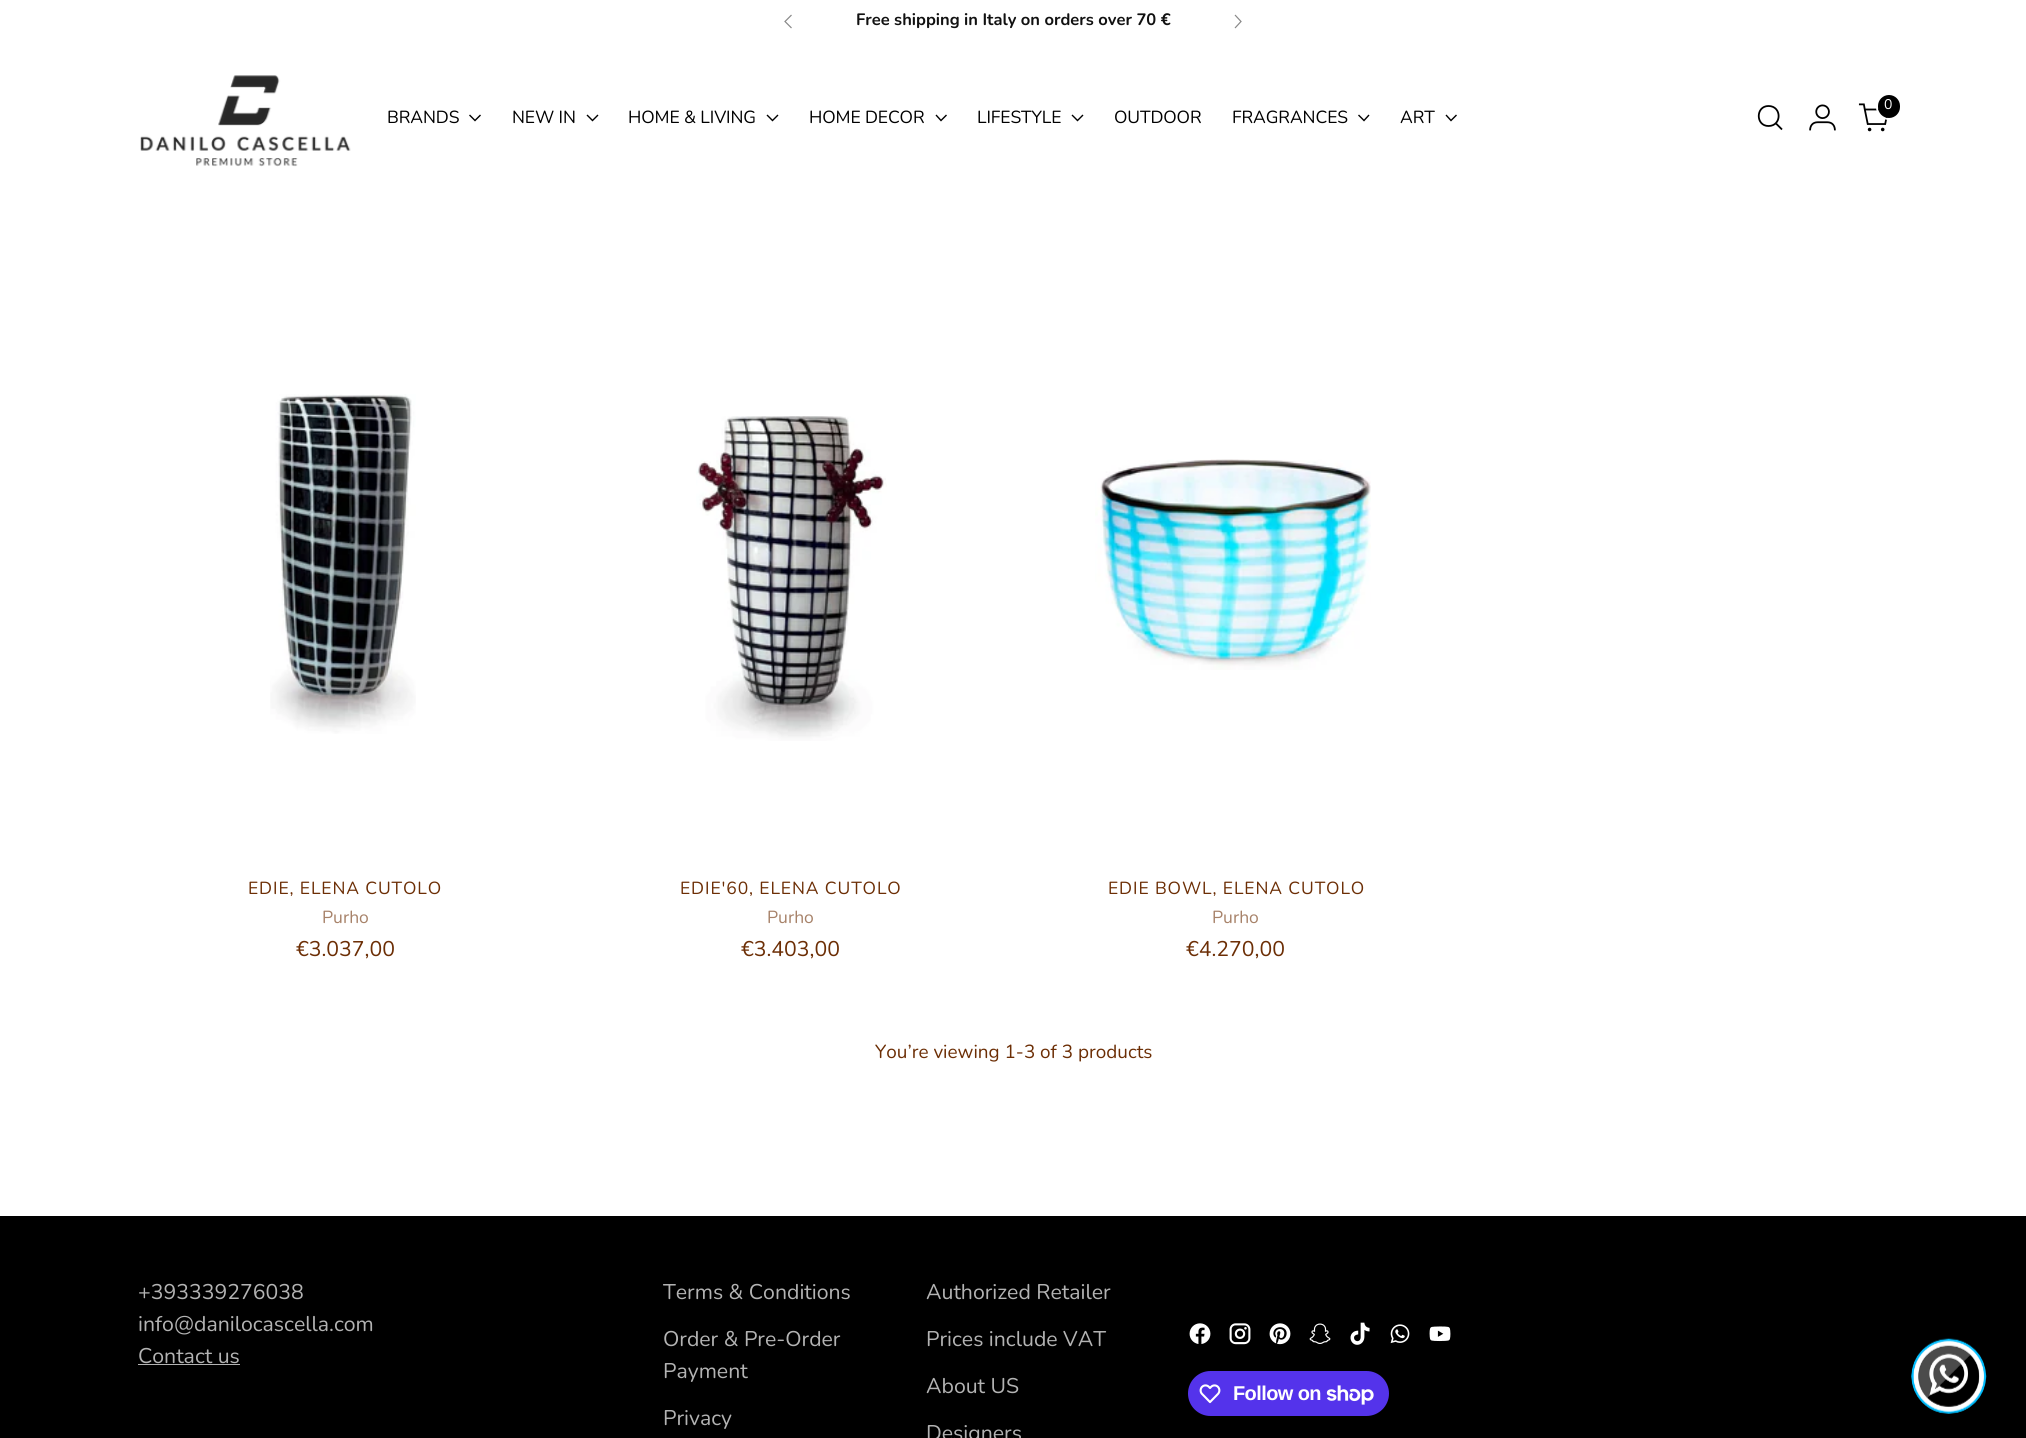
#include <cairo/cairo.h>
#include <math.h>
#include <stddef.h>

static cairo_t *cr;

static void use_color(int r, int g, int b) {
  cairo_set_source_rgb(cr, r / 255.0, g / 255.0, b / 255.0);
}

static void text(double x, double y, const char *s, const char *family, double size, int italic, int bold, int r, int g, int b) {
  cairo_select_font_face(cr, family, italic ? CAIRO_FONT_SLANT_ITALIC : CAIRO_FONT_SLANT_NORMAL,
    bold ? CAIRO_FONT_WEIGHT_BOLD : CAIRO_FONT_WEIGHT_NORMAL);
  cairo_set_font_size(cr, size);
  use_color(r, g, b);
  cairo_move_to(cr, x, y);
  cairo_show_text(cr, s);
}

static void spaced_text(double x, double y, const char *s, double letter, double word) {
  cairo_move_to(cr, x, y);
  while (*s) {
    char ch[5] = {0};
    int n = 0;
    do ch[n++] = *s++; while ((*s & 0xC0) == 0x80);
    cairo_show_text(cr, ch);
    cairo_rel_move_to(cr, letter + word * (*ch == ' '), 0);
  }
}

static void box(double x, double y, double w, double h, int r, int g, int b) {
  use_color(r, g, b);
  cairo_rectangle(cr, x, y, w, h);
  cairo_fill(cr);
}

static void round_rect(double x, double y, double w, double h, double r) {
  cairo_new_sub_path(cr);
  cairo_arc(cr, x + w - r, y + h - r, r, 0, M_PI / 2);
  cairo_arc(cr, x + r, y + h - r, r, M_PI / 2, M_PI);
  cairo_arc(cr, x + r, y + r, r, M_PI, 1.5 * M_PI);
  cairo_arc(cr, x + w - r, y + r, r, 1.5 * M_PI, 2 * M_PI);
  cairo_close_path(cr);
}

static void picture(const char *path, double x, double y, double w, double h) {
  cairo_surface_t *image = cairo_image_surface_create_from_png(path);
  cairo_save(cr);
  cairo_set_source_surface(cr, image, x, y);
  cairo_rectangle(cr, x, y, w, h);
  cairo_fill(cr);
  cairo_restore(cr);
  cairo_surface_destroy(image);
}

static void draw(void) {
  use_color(255, 255, 255);
  cairo_paint(cr);
  cairo_new_path(cr);
  cairo_move_to(cr, 791.5, 15);
  cairo_line_to(cr, 785, 21.5);
  cairo_line_to(cr, 791.5, 28);
  use_color(136, 136, 136);
  cairo_set_line_width(cr, 1.2);
  cairo_stroke(cr);
  cairo_new_path(cr);
  cairo_move_to(cr, 1235, 28);
  cairo_line_to(cr, 1241, 21.5);
  cairo_line_to(cr, 1235, 15);
  cairo_stroke(cr);
  cairo_new_path(cr);
  cairo_move_to(cr, 1768.5, 126);
  cairo_curve_to(cr, 1782, 126, 1782, 106, 1768.5, 106);
  cairo_curve_to(cr, 1755.5, 106, 1755.5, 126, 1768.5, 126);
  cairo_close_path(cr);
  use_color(0, 0, 0);
  cairo_set_line_width(cr, 1.8);
  cairo_set_line_cap(cr, CAIRO_LINE_CAP_ROUND);
  cairo_stroke(cr);
  cairo_new_path(cr);
  cairo_move_to(cr, 1776, 123.5);
  cairo_line_to(cr, 1782, 129.5);
  cairo_set_line_cap(cr, CAIRO_LINE_CAP_BUTT);
  cairo_stroke(cr);
  picture("img_01.png", 1809, 104, 27, 27);
  picture("img_02.png", 1858, 103, 30, 29);
  round_rect(1877, 95, 25, 24, 12);
  use_color(255, 255, 255);
  cairo_set_line_width(cr, 2);
  cairo_stroke(cr);
  use_color(0, 0, 0);
  round_rect(1878, 95, 22, 23, 11);
  cairo_fill(cr);
  picture("img_03.png", 140, 75, 211, 92);
  cairo_new_path(cr);
  cairo_move_to(cr, 469.5, 115);
  cairo_line_to(cr, 475, 120.5);
  cairo_line_to(cr, 480.5, 115);
  cairo_set_line_width(cr, 1.4);
  cairo_stroke(cr);
  cairo_new_path(cr);
  cairo_move_to(cr, 587, 115);
  cairo_line_to(cr, 592.5, 120.5);
  cairo_line_to(cr, 598, 115);
  cairo_stroke(cr);
  cairo_new_path(cr);
  cairo_move_to(cr, 767, 115);
  cairo_line_to(cr, 772.5, 120.5);
  cairo_line_to(cr, 778, 115);
  cairo_stroke(cr);
  cairo_new_path(cr);
  cairo_move_to(cr, 936, 115);
  cairo_line_to(cr, 941, 120.5);
  cairo_line_to(cr, 946.5, 115);
  cairo_stroke(cr);
  cairo_new_path(cr);
  cairo_move_to(cr, 1072, 115);
  cairo_line_to(cr, 1077.5, 120.5);
  cairo_line_to(cr, 1083, 115);
  cairo_stroke(cr);
  cairo_new_path(cr);
  cairo_move_to(cr, 1358.5, 115);
  cairo_line_to(cr, 1364, 120.5);
  cairo_line_to(cr, 1369, 115);
  cairo_stroke(cr);
  cairo_new_path(cr);
  cairo_move_to(cr, 1446, 115);
  cairo_line_to(cr, 1451, 120.5);
  cairo_line_to(cr, 1456.5, 115);
  cairo_stroke(cr);
  picture("img_04.png", 270, 394, 146, 340);
  picture("img_05.png", 696, 416, 191, 325);
  picture("img_06.png", 1095, 459, 276, 211);
  box(0, 1216, 2026, 222, 0, 0, 0);
  box(138, 1364, 102, 1, 179, 179, 179);
  picture("img_07.png", 1189, 1323, 22, 21);
  picture("img_08.png", 1229, 1323, 22, 22);
  picture("img_09.png", 1269, 1323, 22, 22);
  picture("img_10.png", 1309, 1323, 22, 21);
  picture("img_11.png", 1350, 1322, 20, 23);
  picture("img_12.png", 1390, 1324, 20, 20);
  picture("img_13.png", 1429, 1326, 22, 16);
  use_color(84, 51, 235);
  round_rect(1188, 1371, 201, 45, 22.5);
  cairo_fill(cr);
  picture("img_14.png", 1199, 1384, 22, 20);
  picture("img_15.png", 1326, 1385, 48, 20);
  picture("img_16.png", 1911, 1338, 76, 76);
  text(856, 25, "Free shipping in Italy on orders over 70 €", "Nunito", 16.5, 0, 1, 17, 17, 17);
  text(1884, 109, "0", "Nunito", 14, 0, 0, 255, 255, 255);
  cairo_set_font_size(cr, 17.5);
  use_color(0, 0, 0);
  spaced_text(387, 123, "BRANDS", -0.1, 0);
  spaced_text(512, 123, "NEW IN", -0.1, 0);
  spaced_text(628, 123, "HOME & LIVING", -0.1, 0);
  spaced_text(809, 123, "HOME DECOR", -0.1, 0);
  spaced_text(977, 123, "LIFESTYLE", -0.1, 0);
  spaced_text(1114, 123, "OUTDOOR", -0.1, 0);
  spaced_text(1232, 123, "FRAGRANCES", -0.1, 0);
  spaced_text(1400, 123, "ART", -0.1, 0);
  use_color(108, 46, 5);
  spaced_text(248, 894, "EDIE, ELENA CUTOLO", 0.9, 0);
  text(322, 923, "Purho", "Nunito", 17.5, 0, 0, 167, 130, 105);
  text(296, 956, "€3.037,00", "Nunito", 21.25, 0, 0, 108, 46, 5);
  cairo_set_font_size(cr, 17.5);
  spaced_text(680, 894, "EDIE'60, ELENA CUTOLO", 0.9, 0);
  text(767, 923, "Purho", "Nunito", 17.5, 0, 0, 167, 130, 105);
  text(741, 956, "€3.403,00", "Nunito", 21.25, 0, 0, 108, 46, 5);
  cairo_set_font_size(cr, 17.5);
  spaced_text(1108, 894, "EDIE BOWL, ELENA CUTOLO", 0.9, 0);
  text(1212, 923, "Purho", "Nunito", 17.5, 0, 0, 167, 130, 105);
  text(1186, 956, "€4.270,00", "Nunito", 21.25, 0, 0, 108, 46, 5);
  text(875, 1058, "You’re viewing 1-3 of 3 products", "Nunito", 18.9, 0, 0, 108, 46, 5);
  text(138, 1299, "+393339276038", "Nunito", 21.25, 0, 0, 179, 179, 179);
  text(138, 1331, "info@danilocascella.com", "Nunito", 21.25, 0, 0, 179, 179, 179);
  text(138, 1363, "Contact us", "Nunito", 21.25, 0, 0, 179, 179, 179);
  text(663, 1299, "Terms & Conditions", "Nunito", 21.25, 0, 0, 179, 179, 179);
  text(663, 1346, "Order & Pre-Order", "Nunito", 21.25, 0, 0, 179, 179, 179);
  text(663, 1378, "Payment", "Nunito", 21.25, 0, 0, 179, 179, 179);
  text(663, 1425, "Privacy", "Nunito", 21.25, 0, 0, 179, 179, 179);
  text(926, 1299, "Authorized Retailer", "Nunito", 21.25, 0, 0, 179, 179, 179);
  text(926, 1346, "Prices include VAT", "Nunito", 21.25, 0, 0, 179, 179, 179);
  text(926, 1393, "About US", "Nunito", 21.25, 0, 0, 179, 179, 179);
  text(926, 1440, "Designers", "Nunito", 21.25, 0, 0, 179, 179, 179);
  cairo_select_font_face(cr, "Liberation Sans", CAIRO_FONT_SLANT_NORMAL, CAIRO_FONT_WEIGHT_BOLD);
  cairo_set_font_size(cr, 20);
  use_color(255, 255, 255);
  spaced_text(1233, 1400, "Follow on", -0.6, 0);
}

int main(void) {
  cairo_surface_t *surface = cairo_image_surface_create(CAIRO_FORMAT_RGB24, 2026, 1438);
  cr = cairo_create(surface);
  cairo_font_options_t *options = cairo_font_options_create();
  cairo_font_options_set_hint_metrics(options, CAIRO_HINT_METRICS_OFF);
  cairo_font_options_set_hint_style(options, CAIRO_HINT_STYLE_NONE);
  cairo_set_font_options(cr, options);
  cairo_set_miter_limit(cr, 4);
  draw();
  cairo_surface_write_to_png(surface, "out.png");
  cairo_font_options_destroy(options);
  cairo_destroy(cr);
  cairo_surface_destroy(surface);
  return 0;
}
